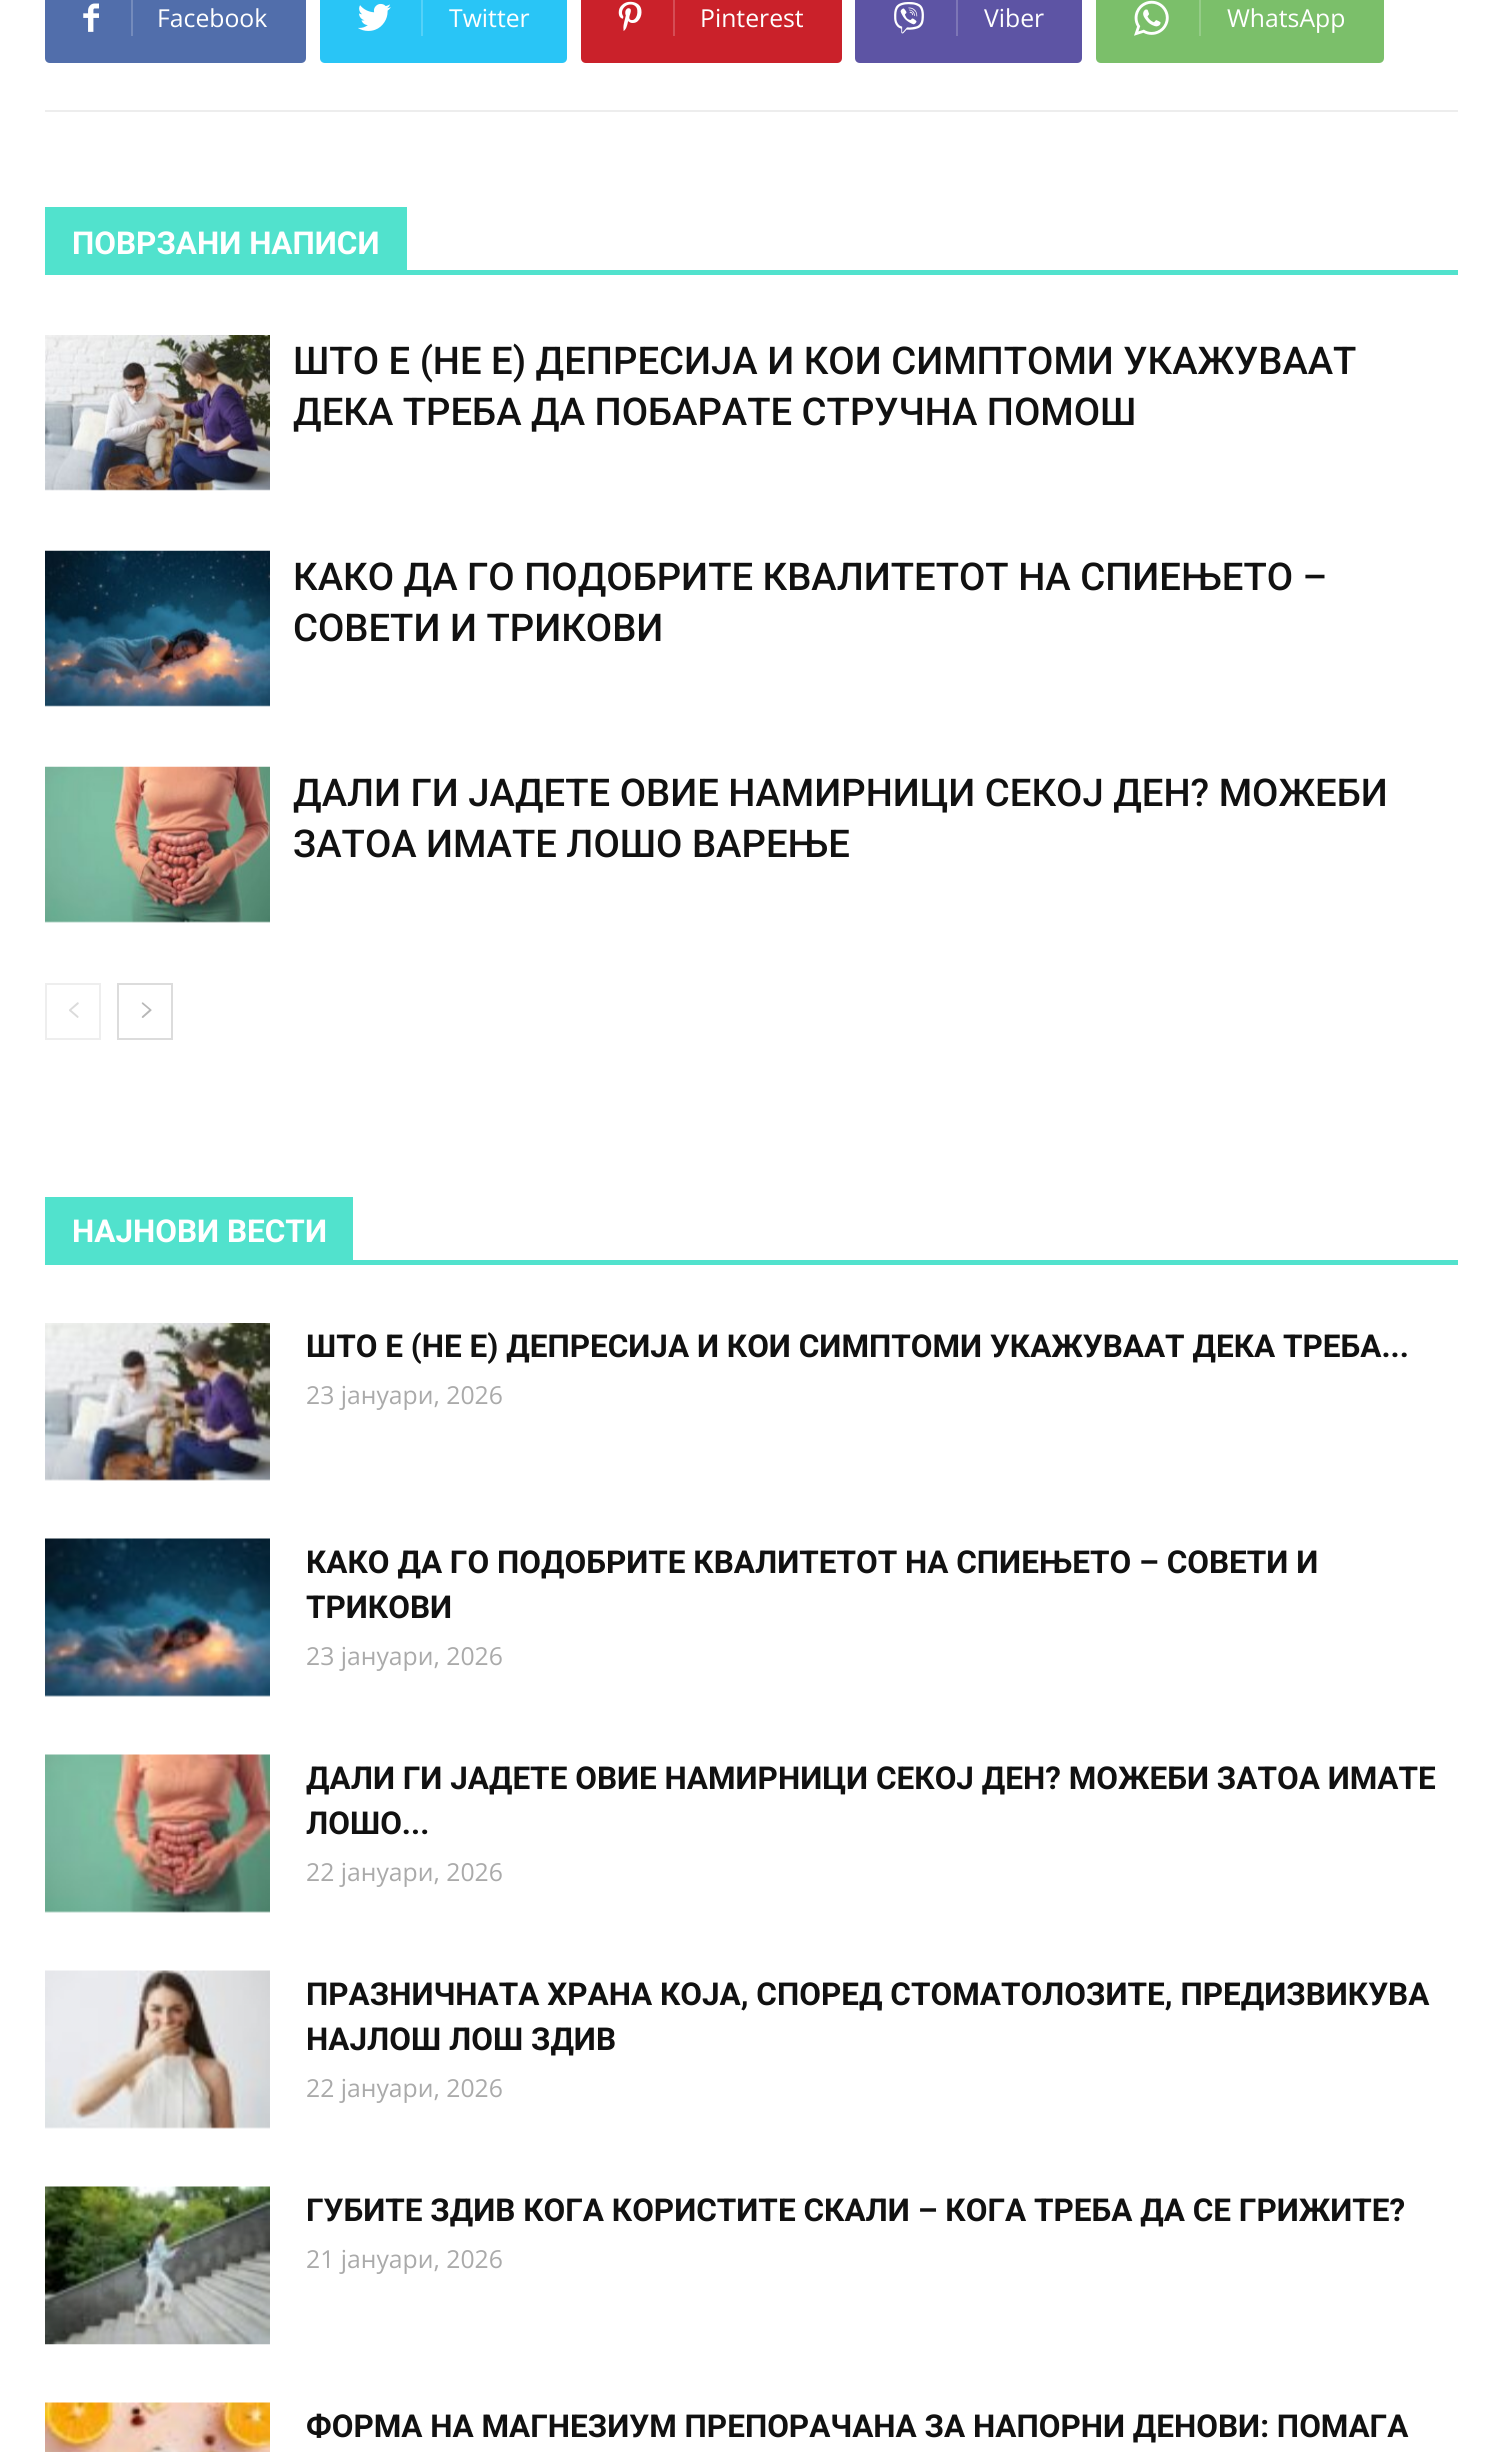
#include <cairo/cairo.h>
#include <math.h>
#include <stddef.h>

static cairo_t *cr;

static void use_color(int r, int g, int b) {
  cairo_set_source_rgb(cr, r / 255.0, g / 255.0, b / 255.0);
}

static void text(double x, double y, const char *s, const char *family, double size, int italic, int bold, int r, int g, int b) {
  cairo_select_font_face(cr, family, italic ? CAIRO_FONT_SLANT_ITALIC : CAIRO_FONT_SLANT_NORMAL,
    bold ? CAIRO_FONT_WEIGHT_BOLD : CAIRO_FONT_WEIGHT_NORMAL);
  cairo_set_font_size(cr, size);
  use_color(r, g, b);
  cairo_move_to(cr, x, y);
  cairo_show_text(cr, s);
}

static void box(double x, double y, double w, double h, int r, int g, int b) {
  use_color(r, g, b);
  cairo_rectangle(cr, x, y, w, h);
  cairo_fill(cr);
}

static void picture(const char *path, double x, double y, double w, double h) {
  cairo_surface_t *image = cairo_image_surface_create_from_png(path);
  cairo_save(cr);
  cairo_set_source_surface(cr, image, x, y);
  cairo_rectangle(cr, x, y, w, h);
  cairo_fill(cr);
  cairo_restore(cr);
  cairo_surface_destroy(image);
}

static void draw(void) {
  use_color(255, 255, 255);
  cairo_paint(cr);
  box(45, 110, 1413, 2, 237, 237, 237);
  use_color(81, 110, 171);
  cairo_new_path(cr);
  cairo_move_to(cr, 131, -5);
  cairo_line_to(cr, 301, -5);
  cairo_curve_to(cr, 304, -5, 306, -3, 306, 0);
  cairo_line_to(cr, 306, 58);
  cairo_curve_to(cr, 306, 61, 304, 63, 301, 63);
  cairo_line_to(cr, 131, 63);
  cairo_close_path(cr);
  cairo_fill(cr);
  cairo_new_path(cr);
  cairo_move_to(cr, 50, -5);
  cairo_line_to(cr, 137, -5);
  cairo_line_to(cr, 137, 63);
  cairo_line_to(cr, 50, 63);
  cairo_curve_to(cr, 47, 63, 45, 61, 45, 58);
  cairo_line_to(cr, 45, 0);
  cairo_curve_to(cr, 45, -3, 47, -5, 50, -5);
  cairo_close_path(cr);
  cairo_fill(cr);
  picture("img_01.png", 83, 3, 16, 29);
  box(131, 0, 2, 36, 116, 139, 188);
  use_color(41, 197, 246);
  cairo_new_path(cr);
  cairo_move_to(cr, 421, -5);
  cairo_line_to(cr, 562, -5);
  cairo_curve_to(cr, 565, -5, 567, -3, 567, 0);
  cairo_line_to(cr, 567, 58);
  cairo_curve_to(cr, 567, 61, 565, 63, 562, 63);
  cairo_line_to(cr, 421, 63);
  cairo_close_path(cr);
  cairo_fill(cr);
  cairo_new_path(cr);
  cairo_move_to(cr, 325, -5);
  cairo_line_to(cr, 430, -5);
  cairo_line_to(cr, 430, 63);
  cairo_line_to(cr, 325, 63);
  cairo_curve_to(cr, 322, 63, 320, 61, 320, 58);
  cairo_line_to(cr, 320, 0);
  cairo_curve_to(cr, 320, -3, 322, -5, 325, -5);
  cairo_close_path(cr);
  cairo_fill(cr);
  picture("img_02.png", 358, 3, 33, 28);
  box(421, 0, 2, 36, 84, 209, 248);
  use_color(202, 33, 42);
  cairo_new_path(cr);
  cairo_move_to(cr, 673, -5);
  cairo_line_to(cr, 837, -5);
  cairo_curve_to(cr, 840, -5, 842, -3, 842, 0);
  cairo_line_to(cr, 842, 58);
  cairo_curve_to(cr, 842, 61, 840, 63, 837, 63);
  cairo_line_to(cr, 673, 63);
  cairo_close_path(cr);
  cairo_fill(cr);
  cairo_new_path(cr);
  cairo_move_to(cr, 586, -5);
  cairo_line_to(cr, 680, -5);
  cairo_line_to(cr, 680, 63);
  cairo_line_to(cr, 586, 63);
  cairo_curve_to(cr, 583, 63, 581, 61, 581, 58);
  cairo_line_to(cr, 581, 0);
  cairo_curve_to(cr, 581, -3, 583, -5, 586, -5);
  cairo_close_path(cr);
  cairo_fill(cr);
  picture("img_03.png", 618, 1, 24, 30);
  box(673, 0, 2, 36, 213, 77, 85);
  use_color(93, 84, 164);
  cairo_new_path(cr);
  cairo_move_to(cr, 956, -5);
  cairo_line_to(cr, 1077, -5);
  cairo_curve_to(cr, 1080, -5, 1082, -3, 1082, 0);
  cairo_line_to(cr, 1082, 58);
  cairo_curve_to(cr, 1082, 61, 1080, 63, 1077, 63);
  cairo_line_to(cr, 956, 63);
  cairo_close_path(cr);
  cairo_fill(cr);
  cairo_new_path(cr);
  cairo_move_to(cr, 860, -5);
  cairo_line_to(cr, 963, -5);
  cairo_line_to(cr, 963, 63);
  cairo_line_to(cr, 860, 63);
  cairo_curve_to(cr, 857, 63, 855, 61, 855, 58);
  cairo_line_to(cr, 855, 0);
  cairo_curve_to(cr, 855, -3, 857, -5, 860, -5);
  cairo_close_path(cr);
  cairo_fill(cr);
  picture("img_04.png", 894, 2, 30, 32);
  box(956, 0, 2, 36, 125, 118, 182);
  use_color(123, 191, 106);
  cairo_new_path(cr);
  cairo_move_to(cr, 1199, -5);
  cairo_line_to(cr, 1379, -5);
  cairo_curve_to(cr, 1382, -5, 1384, -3, 1384, 0);
  cairo_line_to(cr, 1384, 58);
  cairo_curve_to(cr, 1384, 61, 1382, 63, 1379, 63);
  cairo_line_to(cr, 1199, 63);
  cairo_close_path(cr);
  cairo_fill(cr);
  cairo_new_path(cr);
  cairo_move_to(cr, 1101, -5);
  cairo_line_to(cr, 1206, -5);
  cairo_line_to(cr, 1206, 63);
  cairo_line_to(cr, 1101, 63);
  cairo_curve_to(cr, 1098, 63, 1096, 61, 1096, 58);
  cairo_line_to(cr, 1096, 0);
  cairo_curve_to(cr, 1096, -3, 1098, -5, 1101, -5);
  cairo_close_path(cr);
  cairo_fill(cr);
  picture("img_05.png", 1134, 0, 35, 36);
  box(1199, 0, 2, 36, 149, 204, 136);
  box(45, 270, 1413, 5, 81, 226, 205);
  box(45, 207, 362, 63, 81, 226, 205);
  picture("img_06.png", 45, 335, 225, 156);
  picture("img_07.png", 45, 550, 225, 157);
  picture("img_08.png", 45, 766, 225, 157);
  cairo_rectangle(cr, 46, 984, 54, 55);
  use_color(238, 238, 238);
  cairo_stroke(cr);
  picture("img_09.png", 69, 1002, 10, 16);
  cairo_rectangle(cr, 118, 984, 54, 55);
  use_color(220, 220, 220);
  cairo_stroke(cr);
  picture("img_10.png", 141, 1002, 11, 16);
  box(45, 1260, 1413, 5, 81, 226, 205);
  box(45, 1197, 308, 63, 81, 226, 205);
  picture("img_11.png", 45, 1323, 225, 158);
  picture("img_12.png", 45, 1538, 225, 159);
  picture("img_13.png", 45, 1754, 225, 159);
  picture("img_14.png", 45, 1970, 225, 159);
  picture("img_15.png", 45, 2186, 225, 159);
  picture("img_16.png", 45, 2402, 225, 50);
  text(157, 27, "Facebook", "Open Sans", 24.75, 0, 0, 255, 255, 255);
  text(449, 27, "Twitter", "Open Sans", 24.75, 0, 0, 255, 255, 255);
  text(700, 27, "Pinterest", "Open Sans", 24.75, 0, 0, 255, 255, 255);
  text(984, 27, "Viber", "Open Sans", 24.75, 0, 0, 255, 255, 255);
  text(1227, 27, "WhatsApp", "Open Sans", 24.75, 0, 0, 255, 255, 255);
  text(72, 254, "ПОВРЗАНИ НАПИСИ", "Roboto", 31.5, 0, 1, 255, 255, 255);
  text(293, 374, "ШТО Е (НЕ Е) ДЕПРЕСИЈА И КОИ СИМПТОМИ УКАЖУВААТ", "Roboto Medium", 38.25, 0, 0, 17, 17, 17);
  text(293, 425, "ДЕКА ТРЕБА ДА ПОБАРАТЕ СТРУЧНА ПОМОШ", "Roboto Medium", 38.25, 0, 0, 17, 17, 17);
  text(293, 590, "КАКО ДА ГО ПОДОБРИТЕ КВАЛИТЕТОТ НА СПИЕЊЕТО –", "Roboto Medium", 38.25, 0, 0, 17, 17, 17);
  text(293, 641, "СОВЕТИ И ТРИКОВИ", "Roboto Medium", 38.25, 0, 0, 17, 17, 17);
  text(293, 806, "ДАЛИ ГИ ЈАДЕТЕ ОВИЕ НАМИРНИЦИ СЕКОЈ ДЕН? МОЖЕБИ", "Roboto Medium", 38.25, 0, 0, 17, 17, 17);
  text(293, 857, "ЗАТОА ИМАТЕ ЛОШО ВАРЕЊЕ", "Roboto Medium", 38.25, 0, 0, 17, 17, 17);
  text(72, 1242, "НАЈНОВИ ВЕСТИ", "Roboto", 31.5, 0, 1, 255, 255, 255);
  text(306, 1357, "ШТО Е (НЕ Е) ДЕПРЕСИЈА И КОИ СИМПТОМИ УКАЖУВААТ ДЕКА ТРЕБА...", "Roboto", 31.5, 0, 1, 17, 17, 17);
  text(306, 1404, "23 јануари, 2026", "Open Sans", 24.75, 0, 0, 170, 170, 170);
  text(306, 1573, "КАКО ДА ГО ПОДОБРИТЕ КВАЛИТЕТОТ НА СПИЕЊЕТО – СОВЕТИ И", "Roboto", 31.5, 0, 1, 17, 17, 17);
  text(306, 1618, "ТРИКОВИ", "Roboto", 31.5, 0, 1, 17, 17, 17);
  text(306, 1665, "23 јануари, 2026", "Open Sans", 24.75, 0, 0, 170, 170, 170);
  text(306, 1789, "ДАЛИ ГИ ЈАДЕТЕ ОВИЕ НАМИРНИЦИ СЕКОЈ ДЕН? МОЖЕБИ ЗАТОА ИМАТЕ", "Roboto", 31.5, 0, 1, 17, 17, 17);
  text(306, 1834, "ЛОШО...", "Roboto", 31.5, 0, 1, 17, 17, 17);
  text(306, 1881, "22 јануари, 2026", "Open Sans", 24.75, 0, 0, 170, 170, 170);
  text(306, 2005, "ПРАЗНИЧНАТА ХРАНА КОЈА, СПОРЕД СТОМАТОЛОЗИТЕ, ПРЕДИЗВИКУВА", "Roboto", 31.5, 0, 1, 17, 17, 17);
  text(306, 2050, "НАЈЛОШ ЛОШ ЗДИВ", "Roboto", 31.5, 0, 1, 17, 17, 17);
  text(306, 2097, "22 јануари, 2026", "Open Sans", 24.75, 0, 0, 170, 170, 170);
  text(306, 2221, "ГУБИТЕ ЗДИВ КОГА КОРИСТИТЕ СКАЛИ – КОГА ТРЕБА ДА СЕ ГРИЖИТЕ?", "Roboto", 31.5, 0, 1, 17, 17, 17);
  text(306, 2268, "21 јануари, 2026", "Open Sans", 24.75, 0, 0, 170, 170, 170);
  text(306, 2437, "ФОРМА НА МАГНЕЗИУМ ПРЕПОРАЧАНА ЗА НАПОРНИ ДЕНОВИ: ПОМАГА", "Roboto", 31.5, 0, 1, 17, 17, 17);
}

int main(void) {
  cairo_surface_t *surface = cairo_image_surface_create(CAIRO_FORMAT_RGB24, 1503, 2452);
  cr = cairo_create(surface);
  cairo_font_options_t *options = cairo_font_options_create();
  cairo_font_options_set_hint_metrics(options, CAIRO_HINT_METRICS_OFF);
  cairo_font_options_set_hint_style(options, CAIRO_HINT_STYLE_NONE);
  cairo_set_font_options(cr, options);
  cairo_set_miter_limit(cr, 4);
  draw();
  cairo_surface_write_to_png(surface, "out.png");
  cairo_font_options_destroy(options);
  cairo_destroy(cr);
  cairo_surface_destroy(surface);
  return 0;
}
